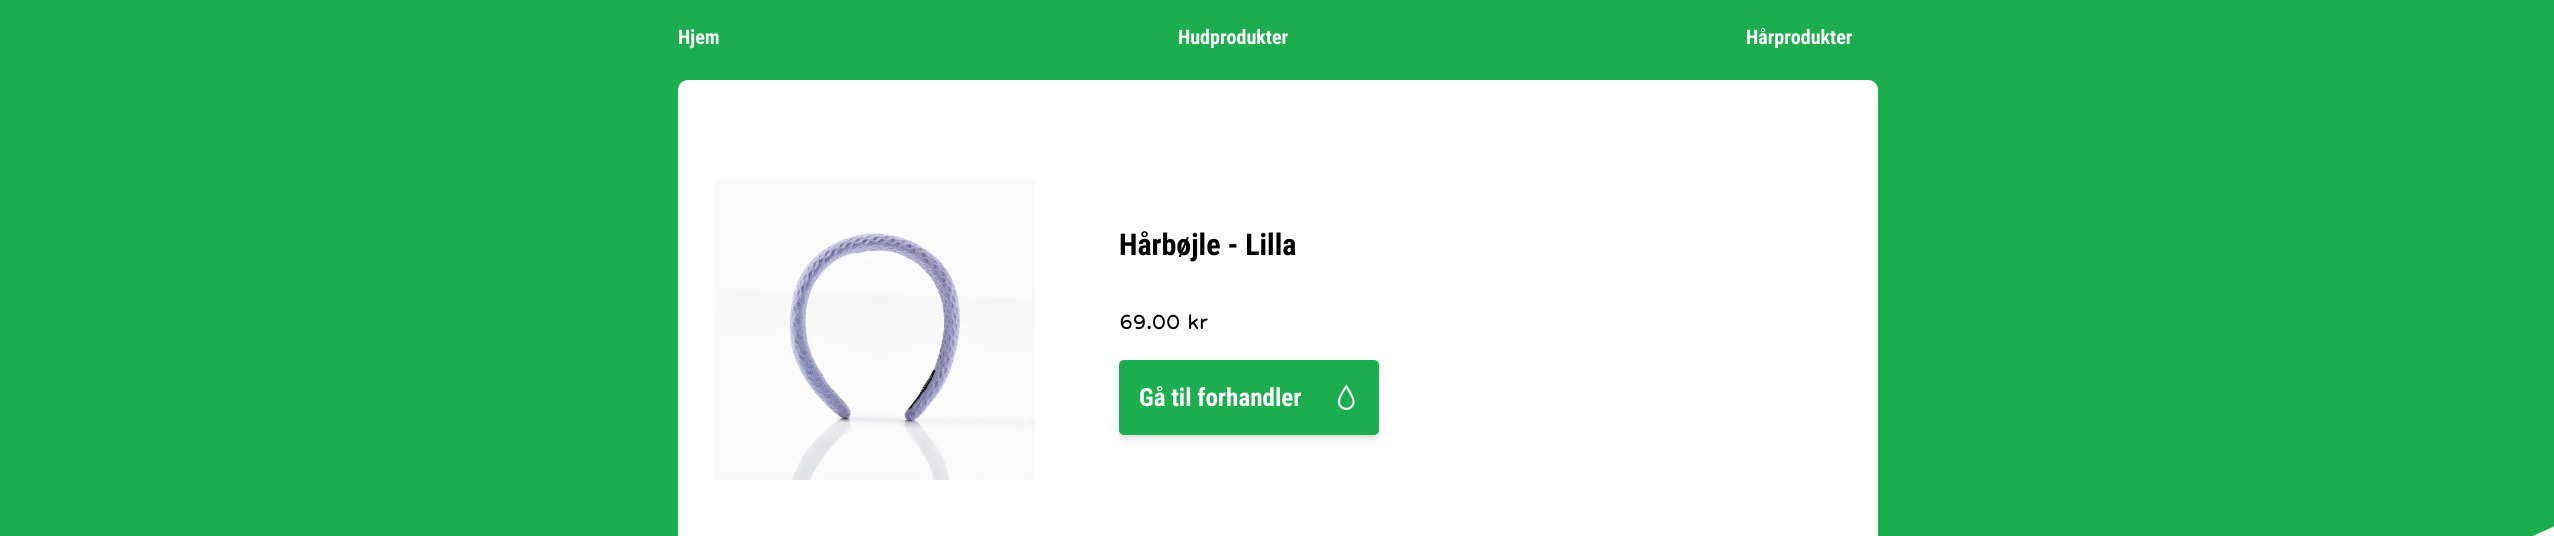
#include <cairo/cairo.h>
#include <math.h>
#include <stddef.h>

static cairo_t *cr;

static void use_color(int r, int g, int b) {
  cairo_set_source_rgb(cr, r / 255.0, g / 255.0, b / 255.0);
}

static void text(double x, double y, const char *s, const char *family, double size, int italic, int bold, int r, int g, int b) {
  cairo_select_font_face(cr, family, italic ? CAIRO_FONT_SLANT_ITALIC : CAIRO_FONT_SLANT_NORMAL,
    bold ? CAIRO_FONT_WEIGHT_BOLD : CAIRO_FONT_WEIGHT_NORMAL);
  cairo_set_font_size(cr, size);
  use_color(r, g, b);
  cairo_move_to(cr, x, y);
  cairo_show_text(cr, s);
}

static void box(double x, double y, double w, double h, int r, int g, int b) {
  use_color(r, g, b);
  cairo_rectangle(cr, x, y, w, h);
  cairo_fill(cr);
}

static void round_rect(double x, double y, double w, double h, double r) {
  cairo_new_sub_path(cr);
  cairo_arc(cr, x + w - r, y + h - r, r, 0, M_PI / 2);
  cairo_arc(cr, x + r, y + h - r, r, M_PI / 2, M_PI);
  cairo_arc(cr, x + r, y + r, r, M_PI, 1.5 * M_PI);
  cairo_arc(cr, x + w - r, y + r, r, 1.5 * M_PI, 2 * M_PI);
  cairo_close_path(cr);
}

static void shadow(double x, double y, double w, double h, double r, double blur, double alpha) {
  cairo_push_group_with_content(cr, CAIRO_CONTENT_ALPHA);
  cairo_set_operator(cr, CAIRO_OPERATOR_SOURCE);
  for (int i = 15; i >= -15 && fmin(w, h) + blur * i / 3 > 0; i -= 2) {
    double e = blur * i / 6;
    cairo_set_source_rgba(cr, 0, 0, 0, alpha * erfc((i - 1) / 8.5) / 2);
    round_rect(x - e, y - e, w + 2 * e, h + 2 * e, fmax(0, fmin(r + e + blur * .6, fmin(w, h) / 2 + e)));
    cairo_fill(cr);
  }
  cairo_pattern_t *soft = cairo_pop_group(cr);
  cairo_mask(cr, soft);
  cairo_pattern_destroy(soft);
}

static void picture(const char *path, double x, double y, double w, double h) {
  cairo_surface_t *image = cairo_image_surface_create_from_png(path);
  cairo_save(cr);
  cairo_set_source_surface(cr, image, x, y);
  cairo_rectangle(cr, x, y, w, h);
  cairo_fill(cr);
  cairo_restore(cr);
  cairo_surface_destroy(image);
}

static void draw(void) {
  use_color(255, 255, 255);
  cairo_paint(cr);
  box(0, 0, 2554, 413, 28, 173, 79);
  cairo_save(cr);
  cairo_rectangle(cr, 0, 413, 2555, 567);
  cairo_clip(cr);
  cairo_new_path(cr);
  cairo_move_to(cr, 0, 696);
  cairo_line_to(cr, 85, 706);
  cairo_curve_to(cr, 170, 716, 341, 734, 511, 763);
  cairo_curve_to(cr, 681, 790, 852, 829, 1022, 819);
  cairo_curve_to(cr, 1192, 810, 1363, 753, 1533, 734);
  cairo_curve_to(cr, 1703, 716, 1874, 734, 2044, 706);
  cairo_curve_to(cr, 2214, 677, 2385, 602, 2470, 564);
  cairo_line_to(cr, 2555, 526);
  cairo_line_to(cr, 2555, 412);
  cairo_line_to(cr, 0, 412);
  cairo_close_path(cr);
  cairo_fill(cr);
  cairo_restore(cr);
  use_color(255, 255, 255);
  round_rect(678, 80, 1200, 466, 10);
  cairo_fill(cr);
  picture("img_01.png", 715, 179, 320, 301);
  use_color(0, 0, 0);
  shadow(1121, 365, 255, 70, 2.5, 2.5, 0.1);
  shadow(1120, 366, 258, 73, 4, 4, 0.1);
  use_color(28, 173, 79);
  round_rect(1119, 360, 260, 75, 5);
  cairo_fill(cr);
  picture("img_02.png", 1337, 385, 18, 25);
  text(678, 44, "Hjem", "Roboto Condensed", 20, 0, 1, 255, 255, 255);
  text(1178, 44, "Hudprodukter", "Roboto Condensed", 20, 0, 1, 255, 255, 255);
  text(1746, 44, "Hårprodukter", "Roboto Condensed", 20, 0, 1, 255, 255, 255);
  text(1119, 255, "Hårbøjle - Lilla", "Roboto Condensed", 30, 0, 1, 0, 0, 0);
  text(1119, 329, "69.00 kr", "Hubballi", 25, 0, 1, 0, 0, 0);
  text(1139, 406, "Gå til forhandler", "Roboto Condensed", 25, 0, 1, 255, 255, 255);
}

int main(void) {
  cairo_surface_t *surface = cairo_image_surface_create(CAIRO_FORMAT_RGB24, 2554, 536);
  cr = cairo_create(surface);
  cairo_font_options_t *options = cairo_font_options_create();
  cairo_font_options_set_hint_metrics(options, CAIRO_HINT_METRICS_OFF);
  cairo_font_options_set_hint_style(options, CAIRO_HINT_STYLE_NONE);
  cairo_set_font_options(cr, options);
  cairo_set_miter_limit(cr, 4);
  draw();
  cairo_surface_write_to_png(surface, "out.png");
  cairo_font_options_destroy(options);
  cairo_destroy(cr);
  cairo_surface_destroy(surface);
  return 0;
}
